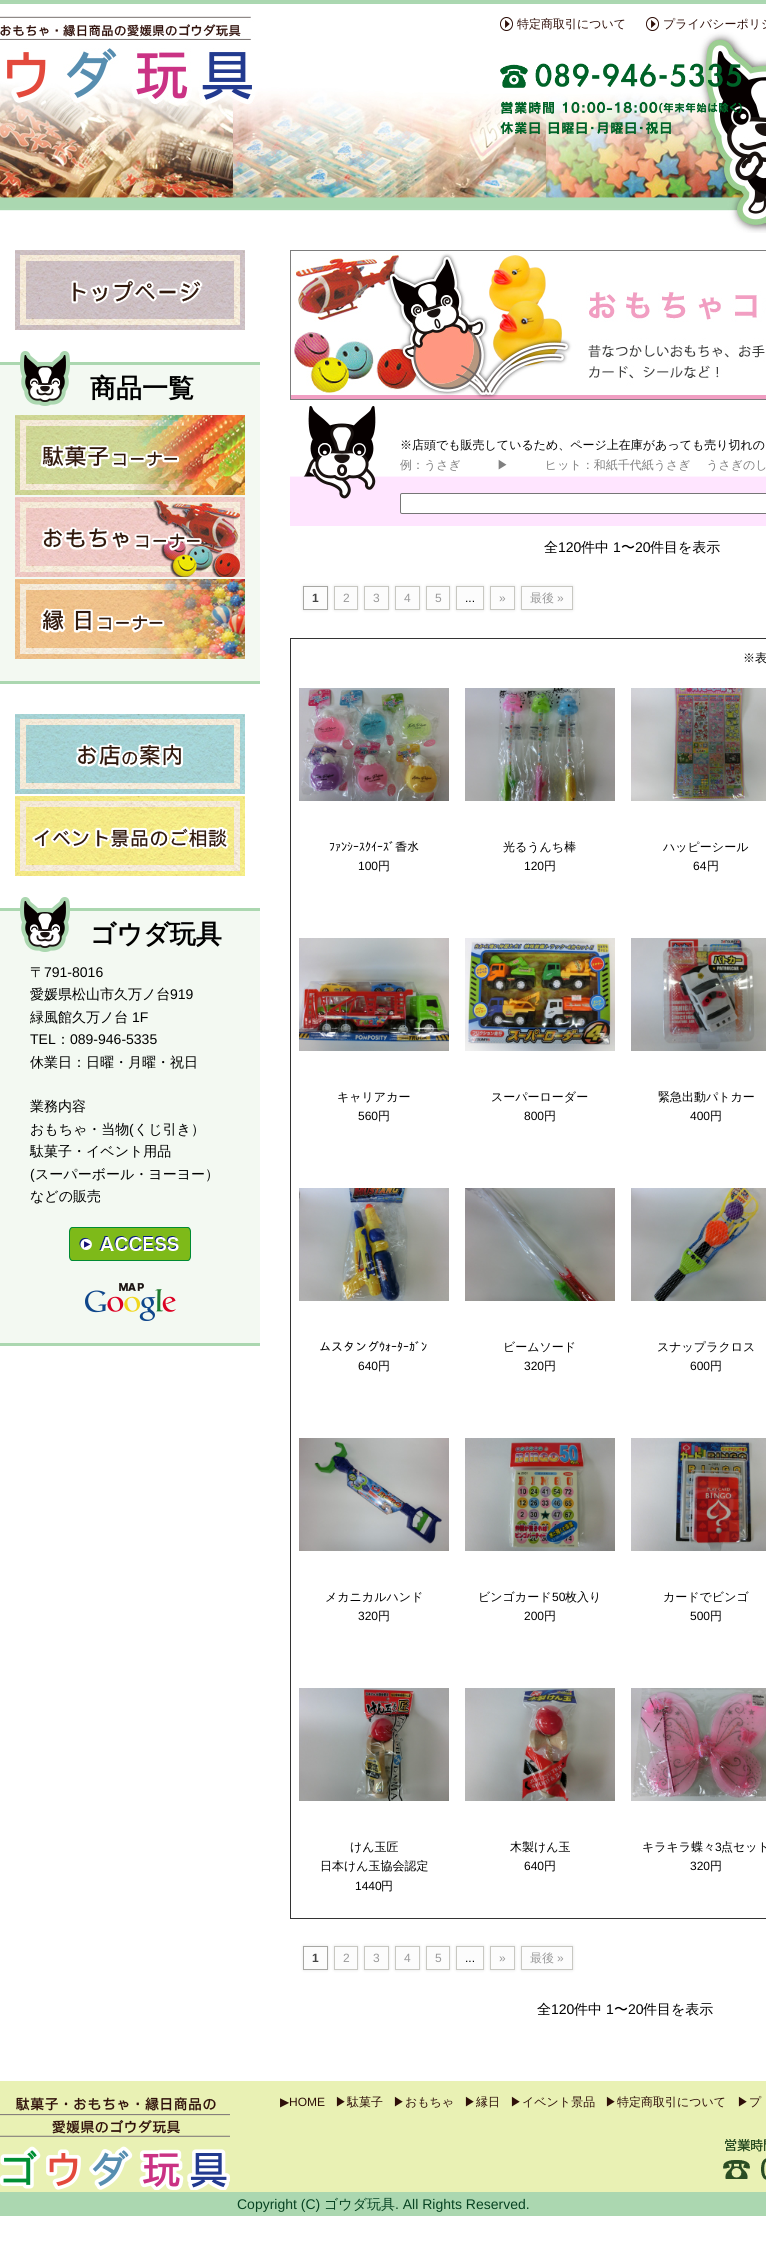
#include <cairo/cairo.h>
#include <math.h>
#include <stddef.h>

static cairo_t *cr;

static void use_color(int r, int g, int b) {
  cairo_set_source_rgb(cr, r / 255.0, g / 255.0, b / 255.0);
}

static void text(double x, double y, const char *s, const char *family, double size, int italic, int bold, int r, int g, int b) {
  cairo_select_font_face(cr, family, italic ? CAIRO_FONT_SLANT_ITALIC : CAIRO_FONT_SLANT_NORMAL,
    bold ? CAIRO_FONT_WEIGHT_BOLD : CAIRO_FONT_WEIGHT_NORMAL);
  cairo_set_font_size(cr, size);
  use_color(r, g, b);
  cairo_move_to(cr, x, y);
  cairo_show_text(cr, s);
}

static void box(double x, double y, double w, double h, int r, int g, int b) {
  use_color(r, g, b);
  cairo_rectangle(cr, x, y, w, h);
  cairo_fill(cr);
}

static void round_rect(double x, double y, double w, double h, double r) {
  cairo_new_sub_path(cr);
  cairo_arc(cr, x + w - r, y + h - r, r, 0, M_PI / 2);
  cairo_arc(cr, x + r, y + h - r, r, M_PI / 2, M_PI);
  cairo_arc(cr, x + r, y + r, r, M_PI, 1.5 * M_PI);
  cairo_arc(cr, x + w - r, y + r, r, 1.5 * M_PI, 2 * M_PI);
  cairo_close_path(cr);
}

static void shadow(double x, double y, double w, double h, double r, double blur, double alpha) {
  cairo_push_group_with_content(cr, CAIRO_CONTENT_ALPHA);
  cairo_set_operator(cr, CAIRO_OPERATOR_SOURCE);
  for (int i = 15; i >= -15 && fmin(w, h) + blur * i / 3 > 0; i -= 2) {
    double e = blur * i / 6;
    cairo_set_source_rgba(cr, 0, 0, 0, alpha * erfc((i - 1) / 8.5) / 2);
    round_rect(x - e, y - e, w + 2 * e, h + 2 * e, fmax(0, fmin(r + e + blur * .6, fmin(w, h) / 2 + e)));
    cairo_fill(cr);
  }
  cairo_pattern_t *soft = cairo_pop_group(cr);
  cairo_mask(cr, soft);
  cairo_pattern_destroy(soft);
}

static void picture(const char *path, double x, double y, double w, double h) {
  cairo_surface_t *image = cairo_image_surface_create_from_png(path);
  cairo_save(cr);
  cairo_set_source_surface(cr, image, x, y);
  cairo_rectangle(cr, x, y, w, h);
  cairo_fill(cr);
  cairo_restore(cr);
  cairo_surface_destroy(image);
}

static void draw(void) {
  use_color(255, 255, 255);
  cairo_paint(cr);
  picture("img_01.png", 0, 0, 766, 233);
  picture("img_02.png", 500, 17, 13, 14);
  picture("img_02.png", 646, 17, 13, 14);
  picture("img_03.png", 500, 63, 242, 71);
  picture("img_04.png", 15, 250, 230, 80);
  box(0, 365, 260, 316, 243, 249, 242);
  box(0, 362, 260, 3, 171, 215, 176);
  box(0, 681, 260, 3, 171, 215, 176);
  picture("img_05.png", 20, 351, 50, 55);
  picture("img_06.png", 15, 415, 230, 80);
  picture("img_07.png", 15, 497, 230, 80);
  picture("img_08.png", 15, 579, 230, 80);
  picture("img_09.png", 15, 714, 230, 80);
  picture("img_10.png", 15, 796, 230, 80);
  box(0, 911, 260, 432, 243, 249, 242);
  box(0, 908, 260, 3, 171, 215, 176);
  box(0, 1343, 260, 3, 171, 215, 176);
  picture("img_05.png", 20, 897, 50, 55);
  picture("img_11.png", 69, 1227, 122, 34);
  picture("img_12.png", 85, 1283, 91, 38);
  picture("img_13.png", 290, 250, 476, 150);
  picture("img_14.png", 290, 406, 476, 120);
  use_color(255, 255, 255);
  round_rect(400.5, 493.5, 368, 20, 1.5);
  cairo_fill_preserve(cr);
  use_color(118, 118, 118);
  cairo_set_line_width(cr, 1);
  cairo_stroke(cr);
  use_color(0, 0, 0);
  shadow(303, 586, 25, 24, 0, 1.5, 0.1);
  use_color(252, 252, 252);
  cairo_rectangle(cr, 303.5, 586.5, 24, 23);
  cairo_fill_preserve(cr);
  use_color(167, 167, 163);
  cairo_stroke(cr);
  use_color(0, 0, 0);
  shadow(334, 586, 24, 24, 0, 1.5, 0.1);
  use_color(252, 252, 252);
  cairo_rectangle(cr, 334.5, 586.5, 23, 23);
  cairo_fill_preserve(cr);
  use_color(200, 200, 194);
  cairo_stroke(cr);
  use_color(0, 0, 0);
  shadow(364, 586, 25, 24, 0, 1.5, 0.1);
  use_color(252, 252, 252);
  cairo_rectangle(cr, 364.5, 586.5, 24, 23);
  cairo_fill_preserve(cr);
  use_color(200, 200, 194);
  cairo_stroke(cr);
  use_color(0, 0, 0);
  shadow(395, 586, 25, 24, 0, 1.5, 0.1);
  use_color(252, 252, 252);
  cairo_rectangle(cr, 395.5, 586.5, 24, 23);
  cairo_fill_preserve(cr);
  use_color(200, 200, 194);
  cairo_stroke(cr);
  use_color(0, 0, 0);
  shadow(426, 586, 24, 24, 0, 1.5, 0.1);
  use_color(252, 252, 252);
  cairo_rectangle(cr, 426.5, 586.5, 23, 23);
  cairo_fill_preserve(cr);
  use_color(200, 200, 194);
  cairo_stroke(cr);
  use_color(0, 0, 0);
  shadow(456, 586, 28, 24, 0, 1.5, 0.1);
  use_color(252, 252, 252);
  cairo_rectangle(cr, 456.5, 586.5, 27, 23);
  cairo_fill_preserve(cr);
  use_color(200, 200, 194);
  cairo_stroke(cr);
  use_color(0, 0, 0);
  shadow(490, 586, 25, 24, 0, 1.5, 0.1);
  use_color(252, 252, 252);
  cairo_rectangle(cr, 490.5, 586.5, 24, 23);
  cairo_fill_preserve(cr);
  use_color(200, 200, 194);
  cairo_stroke(cr);
  use_color(0, 0, 0);
  shadow(521, 586, 52, 24, 0, 1.5, 0.1);
  use_color(252, 252, 252);
  cairo_rectangle(cr, 521.5, 586.5, 51, 23);
  cairo_fill_preserve(cr);
  use_color(200, 200, 194);
  cairo_stroke(cr);
  cairo_rectangle(cr, 290.5, 638.5, 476, 1280);
  use_color(51, 51, 51);
  cairo_stroke(cr);
  picture("img_15.png", 299, 688, 150, 113);
  picture("img_16.png", 465, 688, 150, 113);
  picture("img_17.png", 631, 688, 135, 113);
  picture("img_18.png", 299, 938, 150, 113);
  picture("img_19.png", 465, 938, 150, 113);
  picture("img_20.png", 631, 938, 135, 113);
  picture("img_21.png", 299, 1188, 150, 113);
  picture("img_22.png", 465, 1188, 150, 113);
  picture("img_23.png", 631, 1188, 135, 113);
  picture("img_24.png", 299, 1438, 150, 113);
  picture("img_25.png", 465, 1438, 150, 113);
  picture("img_26.png", 631, 1438, 135, 113);
  picture("img_27.png", 299, 1688, 150, 113);
  picture("img_28.png", 465, 1688, 150, 113);
  picture("img_29.png", 631, 1688, 135, 113);
  use_color(0, 0, 0);
  shadow(303, 1946, 25, 24, 0, 1.5, 0.1);
  use_color(252, 252, 252);
  cairo_rectangle(cr, 303.5, 1946.5, 24, 23);
  cairo_fill_preserve(cr);
  use_color(167, 167, 163);
  cairo_stroke(cr);
  use_color(0, 0, 0);
  shadow(334, 1946, 24, 24, 0, 1.5, 0.1);
  use_color(252, 252, 252);
  cairo_rectangle(cr, 334.5, 1946.5, 23, 23);
  cairo_fill_preserve(cr);
  use_color(200, 200, 194);
  cairo_stroke(cr);
  use_color(0, 0, 0);
  shadow(364, 1946, 25, 24, 0, 1.5, 0.1);
  use_color(252, 252, 252);
  cairo_rectangle(cr, 364.5, 1946.5, 24, 23);
  cairo_fill_preserve(cr);
  use_color(200, 200, 194);
  cairo_stroke(cr);
  use_color(0, 0, 0);
  shadow(395, 1946, 25, 24, 0, 1.5, 0.1);
  use_color(252, 252, 252);
  cairo_rectangle(cr, 395.5, 1946.5, 24, 23);
  cairo_fill_preserve(cr);
  use_color(200, 200, 194);
  cairo_stroke(cr);
  use_color(0, 0, 0);
  shadow(426, 1946, 24, 24, 0, 1.5, 0.1);
  use_color(252, 252, 252);
  cairo_rectangle(cr, 426.5, 1946.5, 23, 23);
  cairo_fill_preserve(cr);
  use_color(200, 200, 194);
  cairo_stroke(cr);
  use_color(0, 0, 0);
  shadow(456, 1946, 28, 24, 0, 1.5, 0.1);
  use_color(252, 252, 252);
  cairo_rectangle(cr, 456.5, 1946.5, 27, 23);
  cairo_fill_preserve(cr);
  use_color(200, 200, 194);
  cairo_stroke(cr);
  use_color(0, 0, 0);
  shadow(490, 1946, 25, 24, 0, 1.5, 0.1);
  use_color(252, 252, 252);
  cairo_rectangle(cr, 490.5, 1946.5, 24, 23);
  cairo_fill_preserve(cr);
  use_color(200, 200, 194);
  cairo_stroke(cr);
  use_color(0, 0, 0);
  shadow(521, 1946, 52, 24, 0, 1.5, 0.1);
  use_color(252, 252, 252);
  cairo_rectangle(cr, 521.5, 1946.5, 51, 23);
  cairo_fill_preserve(cr);
  use_color(200, 200, 194);
  cairo_stroke(cr);
  box(0, 2081, 766, 111, 233, 241, 180);
  picture("img_30.png", 0, 2097, 230, 93);
  picture("img_31.png", 723, 2139, 43, 41);
  box(0, 2192, 766, 24, 171, 215, 176);
  text(517, 28, "特定商取引について", "WenQuanYi Zen Hei Medium", 12, 0, 0, 46, 15, 9);
  text(663, 28, "プライバシーポリシ", "WenQuanYi Zen Hei Medium", 12, 0, 0, 46, 15, 9);
  text(90, 397, "商品一覧", "WenQuanYi Zen Hei", 26, 0, 1, 0, 0, 0);
  text(90, 943, "ゴウダ玩具", "WenQuanYi Zen Hei", 26, 0, 1, 0, 0, 0);
  text(30, 977, "〒", "WenQuanYi Zen Hei Medium", 14, 0, 0, 0, 0, 0);
  text(44, 977, "791-8016", "Liberation Sans", 14, 0, 0, 0, 0, 0);
  text(30, 999, "愛媛県松山市久万ノ台", "WenQuanYi Zen Hei Medium", 14, 0, 0, 0, 0, 0);
  text(170, 999, "919", "Liberation Sans", 14, 0, 0, 0, 0, 0);
  text(30, 1022, "緑風館久万ノ台", "WenQuanYi Zen Hei Medium", 14, 0, 0, 0, 0, 0);
  text(132, 1022, "1F", "Liberation Sans", 14, 0, 0, 0, 0, 0);
  text(30, 1044, "TEL", "Liberation Sans", 14, 0, 0, 0, 0, 0);
  text(56, 1044, "：", "WenQuanYi Zen Hei Medium", 14, 0, 0, 0, 0, 0);
  text(70, 1044, "089-946-5335", "Liberation Sans", 14, 0, 0, 0, 0, 0);
  text(30, 1067, "休業日：日曜・月曜・祝日", "WenQuanYi Zen Hei Medium", 14, 0, 0, 0, 0, 0);
  text(30, 1111, "業務内容", "WenQuanYi Zen Hei Medium", 14, 0, 0, 0, 0, 0);
  text(30, 1134, "おもちゃ・当物", "WenQuanYi Zen Hei Medium", 14, 0, 0, 0, 0, 0);
  text(129, 1134, "(", "Liberation Sans", 14, 0, 0, 0, 0, 0);
  text(134, 1134, "くじ引き）", "WenQuanYi Zen Hei Medium", 14, 0, 0, 0, 0, 0);
  text(30, 1156, "駄菓子・イベント用品", "WenQuanYi Zen Hei Medium", 14, 0, 0, 0, 0, 0);
  text(30, 1179, "(", "Liberation Sans", 14, 0, 0, 0, 0, 0);
  text(35, 1179, "スーパーボール・ヨーヨー）", "WenQuanYi Zen Hei Medium", 14, 0, 0, 0, 0, 0);
  text(30, 1201, "などの販売", "WenQuanYi Zen Hei Medium", 14, 0, 0, 0, 0, 0);
  text(400, 449, "※店頭でも販売しているため、ページ上在庫があっても売り切れの", "WenQuanYi Zen Hei Medium", 12, 0, 0, 0, 0, 0);
  text(400, 469, "例：うさぎ　　　▶　　　ヒット：和紙千代紙うさぎ 　うさぎのし", "WenQuanYi Zen Hei Medium", 12, 0, 0, 128, 128, 128);
  text(544, 552, "全", "WenQuanYi Zen Hei Medium", 14, 0, 0, 0, 0, 0);
  text(558, 552, "120", "Liberation Sans", 14, 0, 0, 0, 0, 0);
  text(581, 552, "件中", "WenQuanYi Zen Hei Medium", 14, 0, 0, 0, 0, 0);
  text(613, 552, "1", "Liberation Sans", 14, 0, 0, 0, 0, 0);
  text(621, 552, "〜", "WenQuanYi Zen Hei Medium", 14, 0, 0, 0, 0, 0);
  text(635, 552, "20", "Liberation Sans", 14, 0, 0, 0, 0, 0);
  text(650, 552, "件目を表示", "WenQuanYi Zen Hei Medium", 14, 0, 0, 0, 0, 0);
  text(312, 602, "1", "Liberation Sans", 12, 0, 1, 68, 68, 68);
  text(343, 602, "2", "Liberation Sans", 12, 0, 0, 153, 153, 153);
  text(373, 602, "3", "Liberation Sans", 12, 0, 0, 153, 153, 153);
  text(404, 602, "4", "Liberation Sans", 12, 0, 0, 153, 153, 153);
  text(435, 602, "5", "Liberation Sans", 12, 0, 0, 153, 153, 153);
  text(465, 602, "...", "Liberation Sans", 12, 0, 0, 0, 0, 0);
  text(499, 602, "»", "Liberation Sans", 12, 0, 0, 153, 153, 153);
  text(530, 602, "最後", "WenQuanYi Zen Hei Medium", 12, 0, 0, 153, 153, 153);
  text(557, 602, "»", "Liberation Sans", 12, 0, 0, 153, 153, 153);
  text(743, 662, "※表", "WenQuanYi Zen Hei Medium", 12, 0, 0, 0, 0, 0);
  text(329, 851, "ﾌｧﾝｼｰｽｸｲｰｽﾞ香水", "IPAGothic", 12, 0, 0, 0, 0, 0);
  text(358, 870, "100", "Liberation Sans", 12, 0, 0, 0, 0, 0);
  text(378, 870, "円", "WenQuanYi Zen Hei Medium", 12, 0, 0, 0, 0, 0);
  text(503, 851, "光るうんち棒", "WenQuanYi Zen Hei Medium", 12, 0, 0, 0, 0, 0);
  text(524, 870, "120", "Liberation Sans", 12, 0, 0, 0, 0, 0);
  text(544, 870, "円", "WenQuanYi Zen Hei Medium", 12, 0, 0, 0, 0, 0);
  text(663, 851, "ハッピーシール", "WenQuanYi Zen Hei Medium", 12, 0, 0, 0, 0, 0);
  text(693, 870, "64", "Liberation Sans", 12, 0, 0, 0, 0, 0);
  text(707, 870, "円", "WenQuanYi Zen Hei Medium", 12, 0, 0, 0, 0, 0);
  text(337, 1101, "キャリアカー", "WenQuanYi Zen Hei Medium", 12, 0, 0, 0, 0, 0);
  text(358, 1120, "560", "Liberation Sans", 12, 0, 0, 0, 0, 0);
  text(378, 1120, "円", "WenQuanYi Zen Hei Medium", 12, 0, 0, 0, 0, 0);
  text(491, 1101, "スーパーローダー", "WenQuanYi Zen Hei Medium", 12, 0, 0, 0, 0, 0);
  text(524, 1120, "800", "Liberation Sans", 12, 0, 0, 0, 0, 0);
  text(544, 1120, "円", "WenQuanYi Zen Hei Medium", 12, 0, 0, 0, 0, 0);
  text(658, 1101, "緊急出動パトカー", "WenQuanYi Zen Hei Medium", 12, 0, 0, 0, 0, 0);
  text(690, 1120, "400", "Liberation Sans", 12, 0, 0, 0, 0, 0);
  text(710, 1120, "円", "WenQuanYi Zen Hei Medium", 12, 0, 0, 0, 0, 0);
  text(319, 1351, "ムスタングｳｫｰﾀｰｶﾞﾝ", "IPAGothic", 12, 0, 0, 0, 0, 0);
  text(358, 1370, "640", "Liberation Sans", 12, 0, 0, 0, 0, 0);
  text(378, 1370, "円", "WenQuanYi Zen Hei Medium", 12, 0, 0, 0, 0, 0);
  text(503, 1351, "ビームソード", "WenQuanYi Zen Hei Medium", 12, 0, 0, 0, 0, 0);
  text(524, 1370, "320", "Liberation Sans", 12, 0, 0, 0, 0, 0);
  text(544, 1370, "円", "WenQuanYi Zen Hei Medium", 12, 0, 0, 0, 0, 0);
  text(657, 1351, "スナップラクロス", "WenQuanYi Zen Hei Medium", 12, 0, 0, 0, 0, 0);
  text(690, 1370, "600", "Liberation Sans", 12, 0, 0, 0, 0, 0);
  text(710, 1370, "円", "WenQuanYi Zen Hei Medium", 12, 0, 0, 0, 0, 0);
  text(325, 1601, "メカニカルハンド", "WenQuanYi Zen Hei Medium", 12, 0, 0, 0, 0, 0);
  text(358, 1620, "320", "Liberation Sans", 12, 0, 0, 0, 0, 0);
  text(378, 1620, "円", "WenQuanYi Zen Hei Medium", 12, 0, 0, 0, 0, 0);
  text(478, 1601, "ビンゴカード", "WenQuanYi Zen Hei Medium", 12, 0, 0, 0, 0, 0);
  text(552, 1601, "50", "Liberation Sans", 12, 0, 0, 0, 0, 0);
  text(565, 1601, "枚入り", "WenQuanYi Zen Hei Medium", 12, 0, 0, 0, 0, 0);
  text(524, 1620, "200", "Liberation Sans", 12, 0, 0, 0, 0, 0);
  text(544, 1620, "円", "WenQuanYi Zen Hei Medium", 12, 0, 0, 0, 0, 0);
  text(663, 1601, "カードでビンゴ", "WenQuanYi Zen Hei Medium", 12, 0, 0, 0, 0, 0);
  text(690, 1620, "500", "Liberation Sans", 12, 0, 0, 0, 0, 0);
  text(710, 1620, "円", "WenQuanYi Zen Hei Medium", 12, 0, 0, 0, 0, 0);
  text(350, 1851, "けん玉匠", "WenQuanYi Zen Hei Medium", 12, 0, 0, 0, 0, 0);
  text(320, 1870, "日本けん玉協会認定", "WenQuanYi Zen Hei Medium", 12, 0, 0, 0, 0, 0);
  text(355, 1890, "1440", "Liberation Sans", 12, 0, 0, 0, 0, 0);
  text(381, 1890, "円", "WenQuanYi Zen Hei Medium", 12, 0, 0, 0, 0, 0);
  text(510, 1851, "木製けん玉", "WenQuanYi Zen Hei Medium", 12, 0, 0, 0, 0, 0);
  text(524, 1870, "640", "Liberation Sans", 12, 0, 0, 0, 0, 0);
  text(544, 1870, "円", "WenQuanYi Zen Hei Medium", 12, 0, 0, 0, 0, 0);
  text(642, 1851, "キラキラ蝶々", "WenQuanYi Zen Hei Medium", 12, 0, 0, 0, 0, 0);
  text(715, 1851, "3", "Liberation Sans", 12, 0, 0, 0, 0, 0);
  text(721, 1851, "点セット", "WenQuanYi Zen Hei Medium", 12, 0, 0, 0, 0, 0);
  text(690, 1870, "320", "Liberation Sans", 12, 0, 0, 0, 0, 0);
  text(710, 1870, "円", "WenQuanYi Zen Hei Medium", 12, 0, 0, 0, 0, 0);
  text(312, 1962, "1", "Liberation Sans", 12, 0, 1, 68, 68, 68);
  text(343, 1962, "2", "Liberation Sans", 12, 0, 0, 153, 153, 153);
  text(373, 1962, "3", "Liberation Sans", 12, 0, 0, 153, 153, 153);
  text(404, 1962, "4", "Liberation Sans", 12, 0, 0, 153, 153, 153);
  text(435, 1962, "5", "Liberation Sans", 12, 0, 0, 153, 153, 153);
  text(465, 1962, "...", "Liberation Sans", 12, 0, 0, 0, 0, 0);
  text(499, 1962, "»", "Liberation Sans", 12, 0, 0, 153, 153, 153);
  text(530, 1962, "最後", "WenQuanYi Zen Hei Medium", 12, 0, 0, 153, 153, 153);
  text(557, 1962, "»", "Liberation Sans", 12, 0, 0, 153, 153, 153);
  text(537, 2014, "全", "WenQuanYi Zen Hei Medium", 14, 0, 0, 0, 0, 0);
  text(551, 2014, "120", "Liberation Sans", 14, 0, 0, 0, 0, 0);
  text(574, 2014, "件中", "WenQuanYi Zen Hei Medium", 14, 0, 0, 0, 0, 0);
  text(606, 2014, "1", "Liberation Sans", 14, 0, 0, 0, 0, 0);
  text(614, 2014, "〜", "WenQuanYi Zen Hei Medium", 14, 0, 0, 0, 0, 0);
  text(628, 2014, "20", "Liberation Sans", 14, 0, 0, 0, 0, 0);
  text(643, 2014, "件目を表示", "WenQuanYi Zen Hei Medium", 14, 0, 0, 0, 0, 0);
  text(280, 2106, "▶", "DejaVu Sans", 12, 0, 0, 46, 15, 9);
  text(289, 2106, "HOME", "Liberation Sans", 12, 0, 0, 46, 15, 9);
  text(335, 2106, "▶駄菓子", "WenQuanYi Zen Hei Medium", 12, 0, 0, 46, 15, 9);
  text(393, 2106, "▶おもちゃ", "WenQuanYi Zen Hei Medium", 12, 0, 0, 46, 15, 9);
  text(464, 2106, "▶縁日", "WenQuanYi Zen Hei Medium", 12, 0, 0, 46, 15, 9);
  text(510, 2106, "▶イベント景品", "WenQuanYi Zen Hei Medium", 12, 0, 0, 46, 15, 9);
  text(605, 2106, "▶特定商取引について", "WenQuanYi Zen Hei Medium", 12, 0, 0, 46, 15, 9);
  text(737, 2106, "▶プ", "WenQuanYi Zen Hei Medium", 12, 0, 0, 46, 15, 9);
  text(237, 2209, "Copyright (C)", "Liberation Sans", 14, 0, 0, 7, 67, 34);
  text(324, 2209, "ゴウダ玩具", "WenQuanYi Zen Hei Medium", 14, 0, 0, 7, 67, 34);
  text(395, 2209, ". All Rights Reserved.", "Liberation Sans", 14, 0, 0, 7, 67, 34);
}

int main(void) {
  cairo_surface_t *surface = cairo_image_surface_create(CAIRO_FORMAT_RGB24, 766, 2267);
  cr = cairo_create(surface);
  cairo_font_options_t *options = cairo_font_options_create();
  cairo_font_options_set_hint_metrics(options, CAIRO_HINT_METRICS_OFF);
  cairo_font_options_set_hint_style(options, CAIRO_HINT_STYLE_NONE);
  cairo_set_font_options(cr, options);
  cairo_set_miter_limit(cr, 4);
  draw();
  cairo_surface_write_to_png(surface, "out.png");
  cairo_font_options_destroy(options);
  cairo_destroy(cr);
  cairo_surface_destroy(surface);
  return 0;
}
